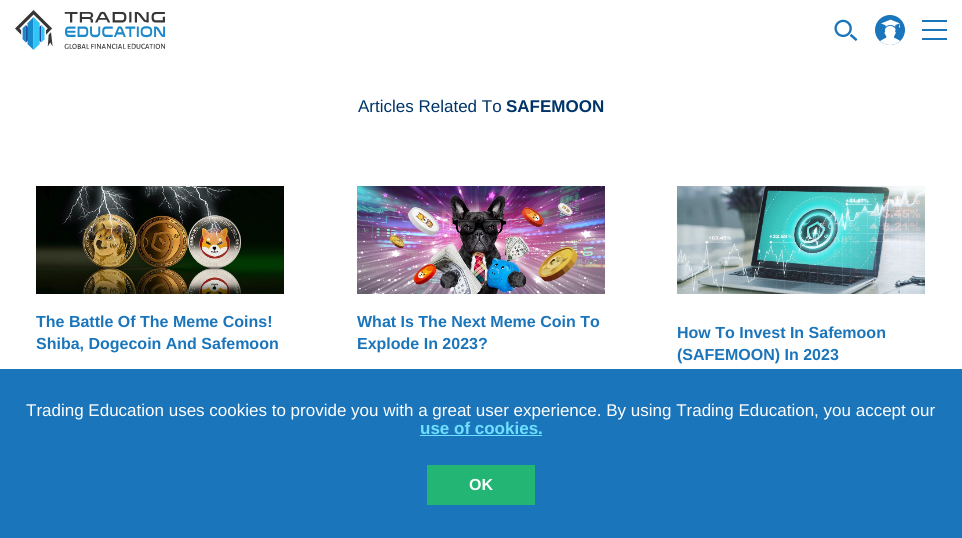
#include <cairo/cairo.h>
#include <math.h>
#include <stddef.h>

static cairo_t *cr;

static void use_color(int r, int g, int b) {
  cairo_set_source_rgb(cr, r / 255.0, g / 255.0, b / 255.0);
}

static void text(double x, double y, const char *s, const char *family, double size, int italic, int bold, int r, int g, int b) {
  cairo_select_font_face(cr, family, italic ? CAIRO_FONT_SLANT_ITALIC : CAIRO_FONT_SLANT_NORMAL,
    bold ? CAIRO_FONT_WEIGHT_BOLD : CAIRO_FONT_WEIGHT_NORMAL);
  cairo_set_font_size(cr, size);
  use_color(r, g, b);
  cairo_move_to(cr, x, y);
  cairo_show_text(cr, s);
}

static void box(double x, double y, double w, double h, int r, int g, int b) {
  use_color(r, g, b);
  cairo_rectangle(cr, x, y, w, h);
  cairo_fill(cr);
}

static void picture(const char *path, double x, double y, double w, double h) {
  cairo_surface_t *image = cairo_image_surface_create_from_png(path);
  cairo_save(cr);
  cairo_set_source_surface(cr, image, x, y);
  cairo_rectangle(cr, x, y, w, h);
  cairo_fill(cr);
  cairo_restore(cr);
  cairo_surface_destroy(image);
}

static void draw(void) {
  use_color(255, 255, 255);
  cairo_paint(cr);
  picture("img_01.png", 15, 10, 150, 40);
  picture("img_02.png", 834, 19, 24, 22);
  use_color(27, 117, 187);
  cairo_arc(cr, 890, 30, 15, 0, 2 * M_PI);
  cairo_fill(cr);
  picture("img_03.png", 880, 19, 21, 26);
  box(922, 20, 25, 2, 27, 117, 187);
  box(922, 29, 25, 2, 27, 117, 187);
  box(922, 38, 25, 2, 27, 117, 187);
  picture("img_04.png", 36, 186, 248, 108);
  picture("img_05.png", 357, 186, 248, 108);
  picture("img_06.png", 677, 186, 248, 108);
  box(0, 369, 962, 169, 27, 117, 187);
  box(420, 435, 122, 1, 110, 224, 255);
  box(427, 465, 108, 40, 34, 181, 115);
  text(358, 112, "Articles Related To", "Liberation Sans", 17, 0, 0, 0, 52, 104);
  text(506, 112, "SAFEMOON", "Liberation Sans", 17, 0, 1, 0, 52, 104);
  text(36, 327, "The Battle Of The Meme Coins!", "Liberation Sans", 16, 0, 1, 27, 117, 187);
  text(36, 349, "Shiba, Dogecoin And Safemoon", "Liberation Sans", 16, 0, 1, 27, 117, 187);
  text(357, 327, "What Is The Next Meme Coin To", "Liberation Sans", 16, 0, 1, 27, 117, 187);
  text(357, 349, "Explode In 2023?", "Liberation Sans", 16, 0, 1, 27, 117, 187);
  text(677, 338, "How To Invest In Safemoon", "Liberation Sans", 16, 0, 1, 27, 117, 187);
  text(677, 360, "(SAFEMOON) In 2023", "Liberation Sans", 16, 0, 1, 27, 117, 187);
  text(26, 416, "Trading Education uses cookies to provide you with a great user experience. By using Trading Education, you accept our", "Liberation Sans", 17, 0, 0, 255, 255, 255);
  text(420, 434, "use of cookies.", "Liberation Sans", 17, 0, 1, 110, 224, 255);
  text(469, 490, "OK", "Liberation Sans", 16, 0, 1, 255, 255, 255);
}

int main(void) {
  cairo_surface_t *surface = cairo_image_surface_create(CAIRO_FORMAT_RGB24, 962, 538);
  cr = cairo_create(surface);
  cairo_font_options_t *options = cairo_font_options_create();
  cairo_font_options_set_hint_metrics(options, CAIRO_HINT_METRICS_OFF);
  cairo_font_options_set_hint_style(options, CAIRO_HINT_STYLE_NONE);
  cairo_set_font_options(cr, options);
  cairo_set_miter_limit(cr, 4);
  draw();
  cairo_surface_write_to_png(surface, "out.png");
  cairo_font_options_destroy(options);
  cairo_destroy(cr);
  cairo_surface_destroy(surface);
  return 0;
}
